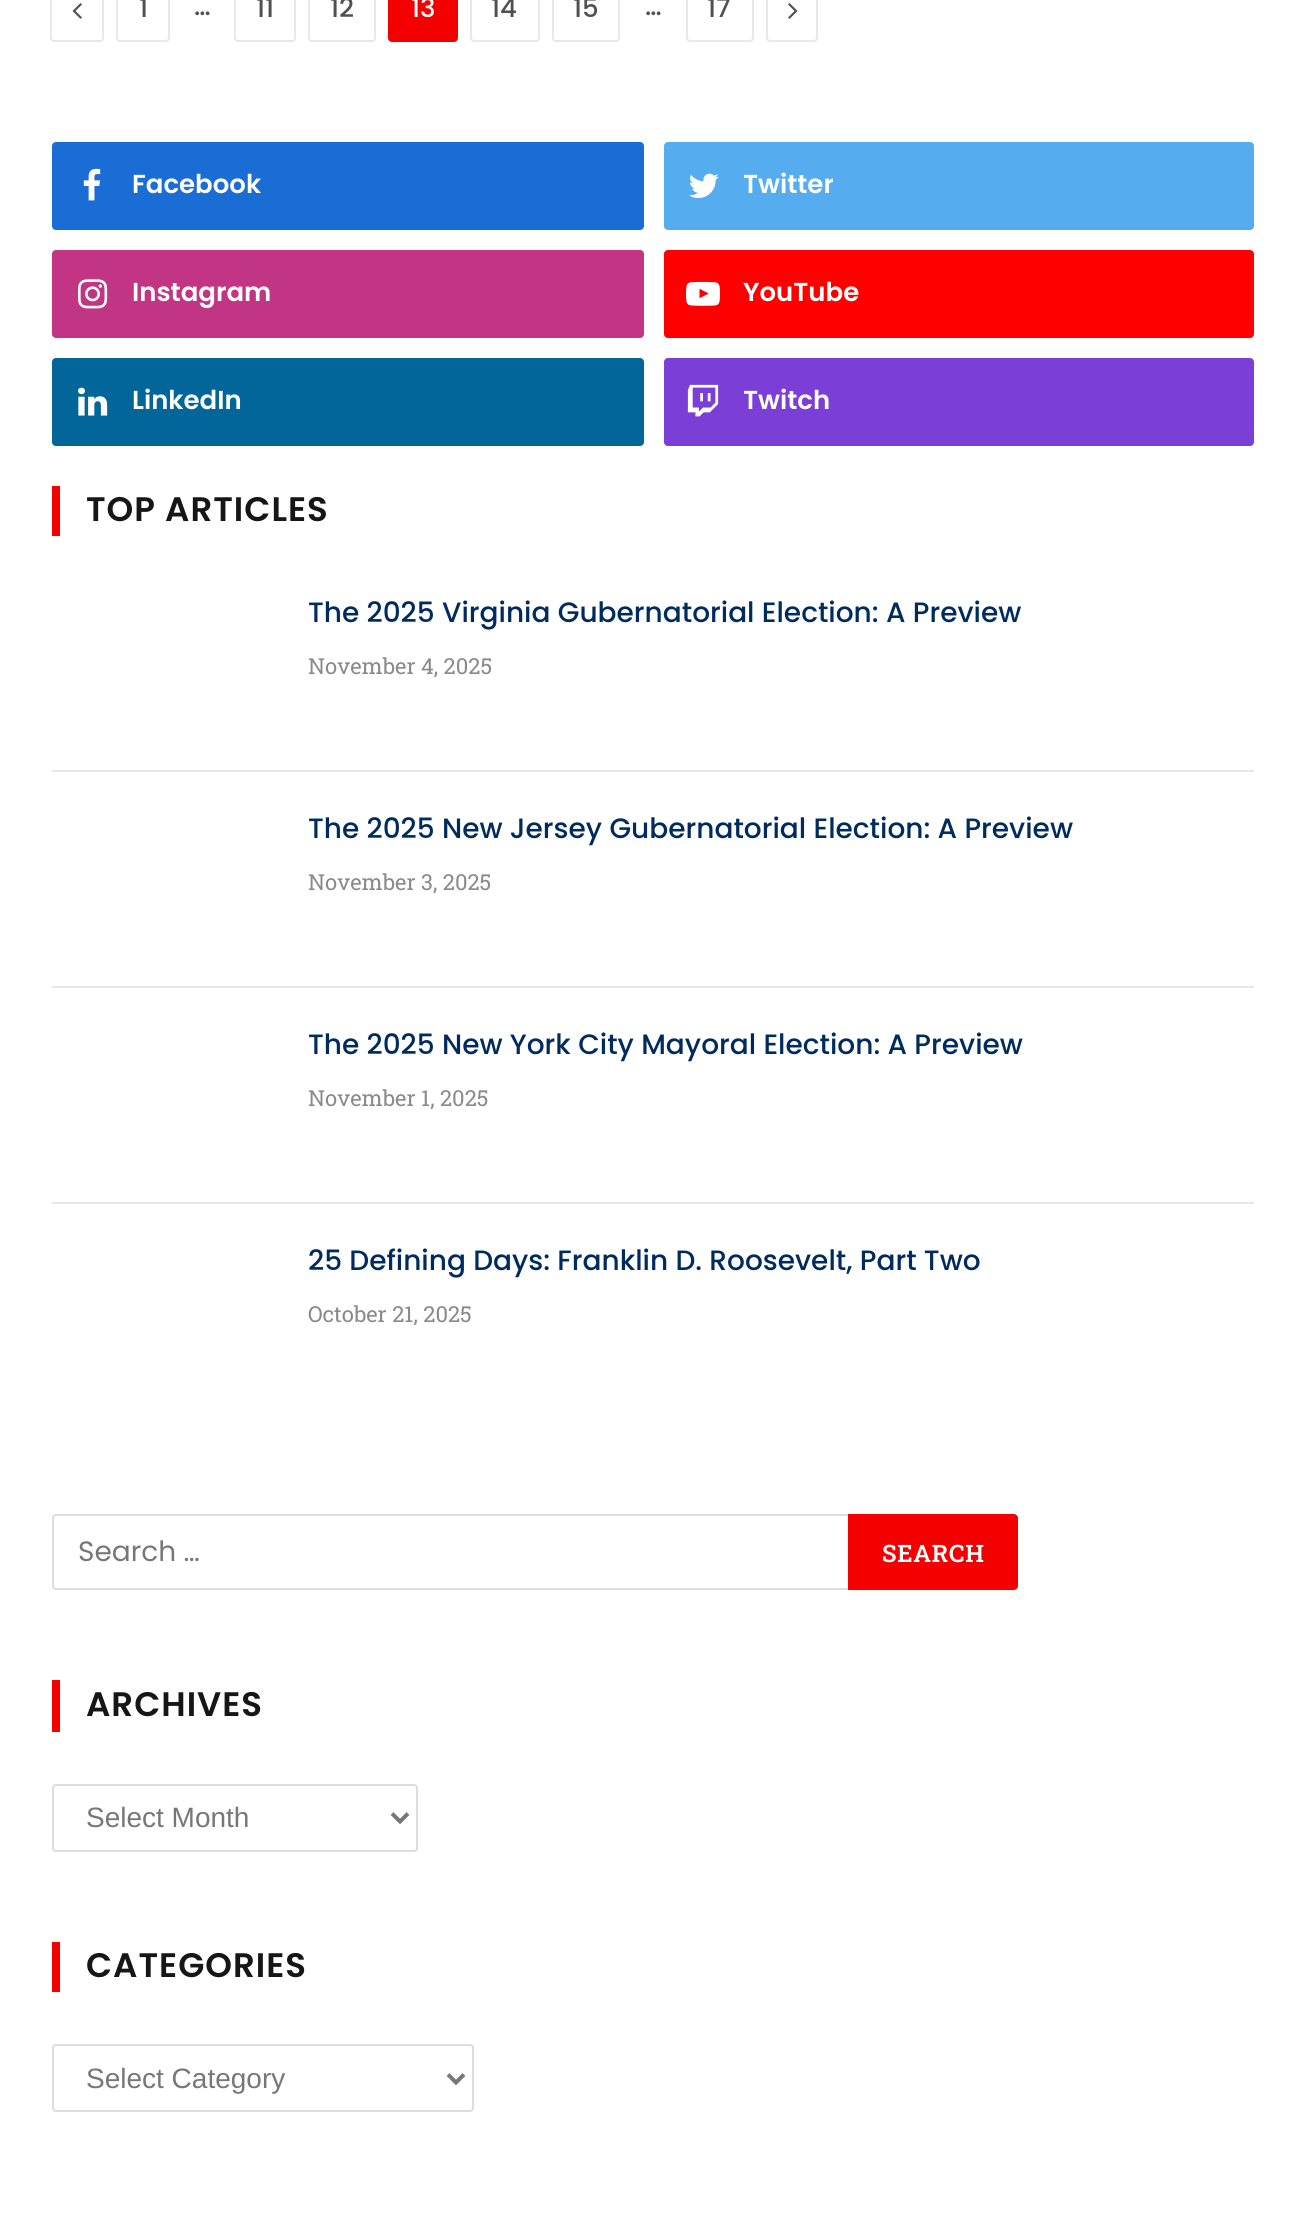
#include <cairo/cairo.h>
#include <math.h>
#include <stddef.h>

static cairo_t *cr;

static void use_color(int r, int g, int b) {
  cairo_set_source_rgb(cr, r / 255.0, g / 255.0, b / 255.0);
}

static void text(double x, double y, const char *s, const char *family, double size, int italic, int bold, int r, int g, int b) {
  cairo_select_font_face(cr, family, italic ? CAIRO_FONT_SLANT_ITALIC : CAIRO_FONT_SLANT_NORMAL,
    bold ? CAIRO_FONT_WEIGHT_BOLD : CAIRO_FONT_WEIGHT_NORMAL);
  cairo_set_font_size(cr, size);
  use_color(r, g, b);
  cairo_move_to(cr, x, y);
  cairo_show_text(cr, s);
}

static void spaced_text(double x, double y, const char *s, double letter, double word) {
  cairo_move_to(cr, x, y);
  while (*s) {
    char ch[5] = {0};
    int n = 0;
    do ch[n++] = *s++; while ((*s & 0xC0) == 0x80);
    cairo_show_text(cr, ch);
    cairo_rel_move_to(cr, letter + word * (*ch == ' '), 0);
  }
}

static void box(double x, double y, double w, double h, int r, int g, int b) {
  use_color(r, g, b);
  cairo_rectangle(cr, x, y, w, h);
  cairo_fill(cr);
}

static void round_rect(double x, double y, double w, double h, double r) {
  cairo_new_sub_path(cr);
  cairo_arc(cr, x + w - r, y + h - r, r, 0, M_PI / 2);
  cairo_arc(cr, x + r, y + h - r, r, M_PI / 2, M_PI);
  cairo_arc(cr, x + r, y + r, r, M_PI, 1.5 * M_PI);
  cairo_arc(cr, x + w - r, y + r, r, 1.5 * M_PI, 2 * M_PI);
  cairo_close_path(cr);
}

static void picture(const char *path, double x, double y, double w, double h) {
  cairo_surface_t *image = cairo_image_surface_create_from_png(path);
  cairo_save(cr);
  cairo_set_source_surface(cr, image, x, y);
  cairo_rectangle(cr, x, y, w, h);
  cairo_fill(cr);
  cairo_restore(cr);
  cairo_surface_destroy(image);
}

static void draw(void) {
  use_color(255, 255, 255);
  cairo_paint(cr);
  round_rect(51, -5, 52, 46, 3);
  use_color(232, 232, 232);
  cairo_stroke(cr);
  picture("img_01.png", 72, 3, 10, 16);
  round_rect(117, -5, 52, 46, 3);
  cairo_stroke(cr);
  round_rect(235, -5, 60, 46, 3);
  cairo_stroke(cr);
  round_rect(309, -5, 66, 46, 3);
  cairo_stroke(cr);
  use_color(244, 0, 0);
  round_rect(388, -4, 70, 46, 4);
  cairo_fill(cr);
  round_rect(471, -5, 68, 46, 3);
  use_color(232, 232, 232);
  cairo_stroke(cr);
  round_rect(553, -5, 66, 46, 3);
  cairo_stroke(cr);
  round_rect(687, -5, 66, 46, 3);
  cairo_stroke(cr);
  round_rect(767, -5, 50, 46, 3);
  cairo_stroke(cr);
  picture("img_02.png", 788, 3, 10, 16);
  use_color(26, 109, 212);
  round_rect(52, 142, 592, 88, 4);
  cairo_fill(cr);
  picture("img_03.png", 83, 168, 18, 33);
  use_color(85, 172, 239);
  round_rect(664, 142, 590, 88, 4);
  cairo_fill(cr);
  picture("img_04.png", 689, 173, 30, 25);
  use_color(193, 53, 132);
  round_rect(52, 250, 592, 88, 4);
  cairo_fill(cr);
  picture("img_05.png", 78, 279, 30, 30);
  use_color(255, 0, 0);
  round_rect(664, 250, 590, 88, 4);
  cairo_fill(cr);
  picture("img_06.png", 686, 281, 34, 25);
  use_color(2, 102, 154);
  round_rect(52, 358, 592, 88, 4);
  cairo_fill(cr);
  picture("img_07.png", 78, 387, 30, 29);
  use_color(123, 62, 214);
  round_rect(664, 358, 590, 88, 4);
  cairo_fill(cr);
  picture("img_08.png", 687, 384, 32, 33);
  box(52, 486, 8, 50, 244, 0, 0);
  box(52, 770, 1202, 2, 232, 232, 232);
  box(52, 986, 1202, 2, 232, 232, 232);
  box(52, 1202, 1202, 2, 232, 232, 232);
  round_rect(53, 1515, 798, 74, 3);
  use_color(221, 221, 221);
  cairo_stroke(cr);
  use_color(244, 0, 0);
  cairo_new_path(cr);
  cairo_move_to(cr, 848, 1514);
  cairo_line_to(cr, 1014, 1514);
  cairo_curve_to(cr, 1016, 1514, 1018, 1516, 1018, 1518);
  cairo_line_to(cr, 1018, 1586);
  cairo_curve_to(cr, 1018, 1588, 1016, 1590, 1014, 1590);
  cairo_line_to(cr, 848, 1590);
  cairo_close_path(cr);
  cairo_fill(cr);
  box(52, 1680, 8, 52, 244, 0, 0);
  round_rect(53, 1785, 364, 66, 3);
  use_color(221, 221, 221);
  cairo_stroke(cr);
  cairo_new_path(cr);
  cairo_move_to(cr, 392, 1813.5);
  cairo_line_to(cr, 400, 1821.5);
  cairo_line_to(cr, 408, 1813.5);
  use_color(119, 119, 119);
  cairo_set_line_width(cr, 4);
  cairo_stroke(cr);
  box(52, 1942, 8, 50, 244, 0, 0);
  round_rect(53, 2045, 420, 66, 3);
  use_color(221, 221, 221);
  cairo_set_line_width(cr, 2);
  cairo_stroke(cr);
  cairo_new_path(cr);
  cairo_move_to(cr, 448, 2074.5);
  cairo_line_to(cr, 456, 2082.5);
  cairo_line_to(cr, 464, 2074.5);
  use_color(119, 119, 119);
  cairo_set_line_width(cr, 4);
  cairo_stroke(cr);
  text(139, 17, "1", "Poppins Medium", 26, 0, 0, 80, 80, 80);
  text(194, 15, "…", "Poppins Medium", 26, 0, 0, 80, 80, 80);
  text(256, 17, "11", "Poppins Medium", 26, 0, 0, 80, 80, 80);
  text(330, 17, "12", "Poppins Medium", 26, 0, 0, 80, 80, 80);
  text(411, 17, "13", "Poppins Medium", 26, 0, 0, 255, 255, 255);
  text(491, 17, "14", "Poppins Medium", 26, 0, 0, 80, 80, 80);
  text(573, 17, "15", "Poppins Medium", 26, 0, 0, 80, 80, 80);
  text(645, 15, "…", "Poppins Medium", 26, 0, 0, 80, 80, 80);
  text(707, 17, "17", "Poppins Medium", 26, 0, 0, 80, 80, 80);
  text(132, 193, "Facebook", "Poppins SemiBold", 26, 0, 0, 255, 255, 255);
  cairo_save(cr);
  cairo_rectangle(cr, 744, 142, 90, 88);
  cairo_clip(cr);
  text(743, 193, "Twitter", "Poppins SemiBold", 26, 0, 0, 255, 255, 255);
  cairo_restore(cr);
  text(132, 301, "Instagram", "Poppins SemiBold", 26, 0, 0, 255, 255, 255);
  text(743, 301, "YouTube", "Poppins SemiBold", 26, 0, 0, 255, 255, 255);
  text(132, 409, "LinkedIn", "Poppins SemiBold", 26, 0, 0, 255, 255, 255);
  cairo_save(cr);
  cairo_rectangle(cr, 744, 358, 86, 88);
  cairo_clip(cr);
  text(743, 409, "Twitch", "Poppins SemiBold", 26, 0, 0, 255, 255, 255);
  cairo_restore(cr);
  cairo_set_font_size(cr, 34);
  use_color(22, 22, 22);
  spaced_text(86, 521, "TOP ARTICLES", 1, 0);
  text(308, 622, "The 2025 Virginia Gubernatorial Election: A Preview", "Poppins Medium", 28, 0, 0, 0, 43, 94);
  text(308, 674, "November 4, 2025", "Roboto Slab", 22, 0, 0, 138, 138, 138);
  text(308, 838, "The 2025 New Jersey Gubernatorial Election: A Preview", "Poppins Medium", 28, 0, 0, 0, 43, 94);
  text(308, 890, "November 3, 2025", "Roboto Slab", 22, 0, 0, 138, 138, 138);
  text(308, 1054, "The 2025 New York City Mayoral Election: A Preview", "Poppins Medium", 28, 0, 0, 0, 43, 94);
  text(308, 1106, "November 1, 2025", "Roboto Slab", 22, 0, 0, 138, 138, 138);
  text(308, 1270, "25 Defining Days: Franklin D. Roosevelt, Part Two", "Poppins Medium", 28, 0, 0, 0, 43, 94);
  text(308, 1322, "October 21, 2025", "Roboto Slab", 22, 0, 0, 138, 138, 138);
  text(78, 1561, "Search …", "Poppins", 28, 0, 0, 119, 119, 119);
  cairo_select_font_face(cr, "Roboto Slab SemiBold", CAIRO_FONT_SLANT_NORMAL, CAIRO_FONT_WEIGHT_NORMAL);
  cairo_set_font_size(cr, 24);
  use_color(255, 255, 255);
  spaced_text(882, 1562, "SEARCH", 0.75, 0);
  cairo_select_font_face(cr, "Poppins SemiBold", CAIRO_FONT_SLANT_NORMAL, CAIRO_FONT_WEIGHT_NORMAL);
  cairo_set_font_size(cr, 34);
  use_color(22, 22, 22);
  spaced_text(86, 1716, "ARCHIVES", 1, 0);
  text(86, 1827, "Select Month", "Liberation Sans", 28, 0, 0, 119, 119, 119);
  cairo_select_font_face(cr, "Poppins SemiBold", CAIRO_FONT_SLANT_NORMAL, CAIRO_FONT_WEIGHT_NORMAL);
  cairo_set_font_size(cr, 34);
  use_color(22, 22, 22);
  spaced_text(86, 1977, "CATEGORIES", 1, 0);
  text(86, 2088, "Select Category", "Liberation Sans", 28, 0, 0, 119, 119, 119);
}

int main(void) {
  cairo_surface_t *surface = cairo_image_surface_create(CAIRO_FORMAT_RGB24, 1303, 2228);
  cr = cairo_create(surface);
  cairo_font_options_t *options = cairo_font_options_create();
  cairo_font_options_set_hint_metrics(options, CAIRO_HINT_METRICS_OFF);
  cairo_font_options_set_hint_style(options, CAIRO_HINT_STYLE_NONE);
  cairo_set_font_options(cr, options);
  cairo_set_miter_limit(cr, 4);
  draw();
  cairo_surface_write_to_png(surface, "out.png");
  cairo_font_options_destroy(options);
  cairo_destroy(cr);
  cairo_surface_destroy(surface);
  return 0;
}
